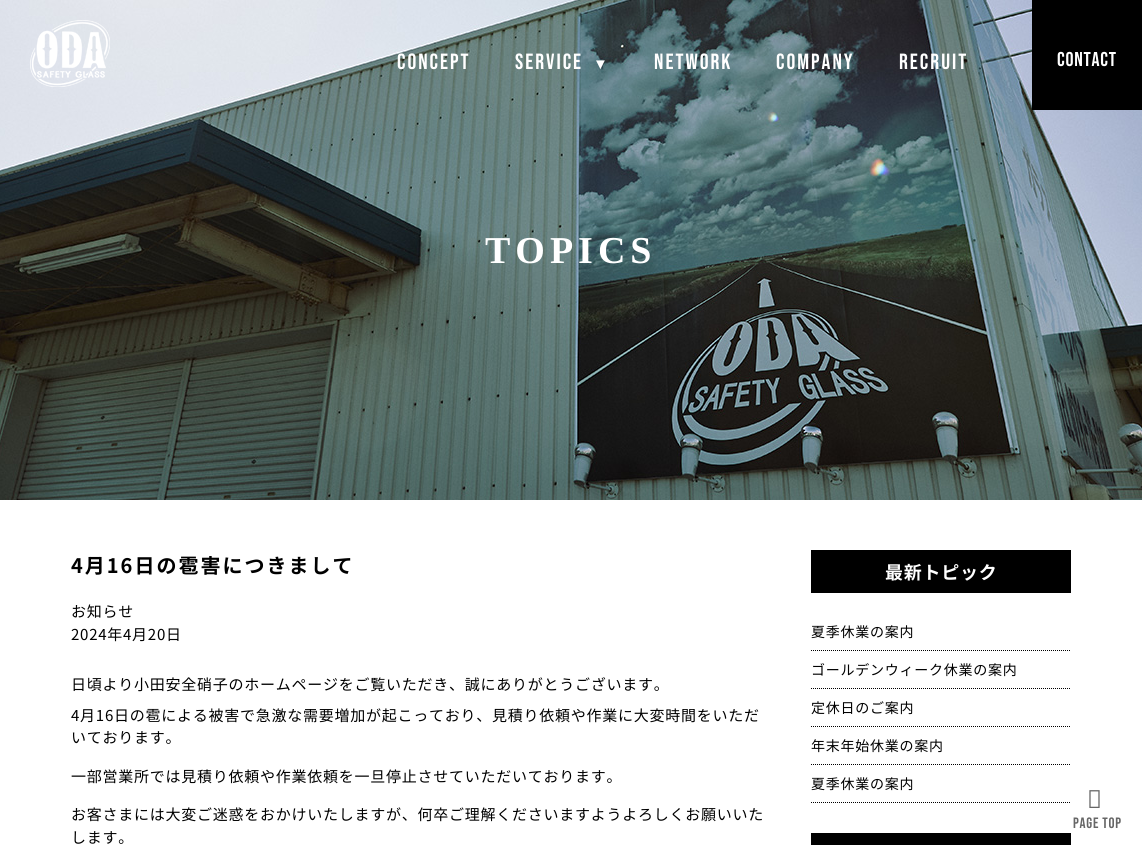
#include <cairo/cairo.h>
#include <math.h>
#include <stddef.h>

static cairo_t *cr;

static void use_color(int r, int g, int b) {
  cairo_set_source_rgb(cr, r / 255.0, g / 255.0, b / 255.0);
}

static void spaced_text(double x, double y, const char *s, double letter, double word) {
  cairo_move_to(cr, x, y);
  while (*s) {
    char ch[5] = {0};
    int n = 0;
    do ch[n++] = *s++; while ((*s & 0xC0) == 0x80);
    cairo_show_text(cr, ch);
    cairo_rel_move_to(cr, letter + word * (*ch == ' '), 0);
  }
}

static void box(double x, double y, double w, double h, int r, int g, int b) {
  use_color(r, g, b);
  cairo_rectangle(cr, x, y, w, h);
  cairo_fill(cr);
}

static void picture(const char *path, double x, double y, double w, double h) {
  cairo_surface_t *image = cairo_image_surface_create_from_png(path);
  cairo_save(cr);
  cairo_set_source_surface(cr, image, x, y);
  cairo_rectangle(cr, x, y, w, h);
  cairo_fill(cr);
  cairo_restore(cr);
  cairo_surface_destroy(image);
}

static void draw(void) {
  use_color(255, 255, 255);
  cairo_paint(cr);
  picture("img_02.png", 0, 0, 1142, 500);
  picture("img_01.png", 30, 20, 80, 67);
  box(1032, 0, 110, 110, 0, 0, 0);
  box(811, 550, 260, 43, 0, 0, 0);
  cairo_new_path(cr);
  cairo_move_to(cr, 811, 650.5);
  cairo_line_to(cr, 1071, 650.5);
  cairo_set_line_width(cr, 1);
  cairo_set_dash(cr, (double[]){1, 1}, 2, 0);
  cairo_stroke(cr);
  cairo_new_path(cr);
  cairo_move_to(cr, 811, 688.5);
  cairo_line_to(cr, 1071, 688.5);
  cairo_stroke(cr);
  cairo_new_path(cr);
  cairo_move_to(cr, 811, 726.5);
  cairo_line_to(cr, 1071, 726.5);
  cairo_stroke(cr);
  cairo_new_path(cr);
  cairo_move_to(cr, 811, 764.5);
  cairo_line_to(cr, 1071, 764.5);
  cairo_stroke(cr);
  cairo_new_path(cr);
  cairo_move_to(cr, 811, 802.5);
  cairo_line_to(cr, 1071, 802.5);
  cairo_stroke(cr);
  box(811, 833, 260, 12, 0, 0, 0);
  picture("img_03.png", 1089, 790, 11, 18);
  cairo_select_font_face(cr, "Bebas Neue", CAIRO_FONT_SLANT_NORMAL, CAIRO_FONT_WEIGHT_NORMAL);
  cairo_set_font_size(cr, 22);
  use_color(255, 255, 255);
  spaced_text(397, 69, "CONCEPT", 2, 0);
  spaced_text(515, 69, "SERVICE", 2, 0);
  cairo_select_font_face(cr, "Liberation Serif", CAIRO_FONT_SLANT_NORMAL, CAIRO_FONT_WEIGHT_NORMAL);
  cairo_set_font_size(cr, 15);
  spaced_text(593, 69, "▼", 2, 0);
  cairo_select_font_face(cr, "Bebas Neue", CAIRO_FONT_SLANT_NORMAL, CAIRO_FONT_WEIGHT_NORMAL);
  cairo_set_font_size(cr, 22);
  spaced_text(654, 69, "NETWORK", 2, 0);
  spaced_text(776, 69, "COMPANY", 2, 0);
  spaced_text(899, 69, "RECRUIT", 2, 0);
  cairo_set_font_size(cr, 20);
  spaced_text(1057, 66, "CONTACT", 0.75, 0);
  cairo_select_font_face(cr, "Liberation Serif", CAIRO_FONT_SLANT_NORMAL, CAIRO_FONT_WEIGHT_BOLD);
  cairo_set_font_size(cr, 38);
  spaced_text(485, 263, "TOPICS", 5, 0);
  cairo_select_font_face(cr, "Noto Sans JP", CAIRO_FONT_SLANT_NORMAL, CAIRO_FONT_WEIGHT_BOLD);
  cairo_set_font_size(cr, 20);
  use_color(0, 0, 0);
  spaced_text(71, 573, "4月16日の雹害につきまして", 2, 0);
  cairo_select_font_face(cr, "Noto Sans JP", CAIRO_FONT_SLANT_NORMAL, CAIRO_FONT_WEIGHT_NORMAL);
  cairo_set_font_size(cr, 15);
  spaced_text(71, 617, "お知らせ", 0.75, 0);
  spaced_text(71, 640, "2024年4月20日", 0.75, 0);
  spaced_text(71, 690, "日頃より小田安全硝子のホームページをご覧いただき、誠にありがとうございます。", 0.75, 0);
  spaced_text(71, 721, "4月16日の雹による被害で急激な需要増加が起こっており、見積り依頼や作業に大変時間をいただ", 0.75, 0);
  spaced_text(71, 743, "いております。", 0.75, 0);
  spaced_text(71, 782, "一部営業所では見積り依頼や作業依頼を一旦停止させていただいております。", 0.75, 0);
  spaced_text(71, 820, "お客さまには大変ご迷惑をおかけいたしますが、何卒ご理解くださいますようよろしくお願いいた", 0.75, 0);
  spaced_text(71, 843, "します。", 0.75, 0);
  cairo_select_font_face(cr, "Noto Sans JP", CAIRO_FONT_SLANT_NORMAL, CAIRO_FONT_WEIGHT_BOLD);
  cairo_set_font_size(cr, 18);
  use_color(255, 255, 255);
  spaced_text(885, 579, "最新トピック", 0.75, 0);
  cairo_select_font_face(cr, "Noto Sans JP", CAIRO_FONT_SLANT_NORMAL, CAIRO_FONT_WEIGHT_NORMAL);
  cairo_set_font_size(cr, 14);
  use_color(0, 0, 0);
  spaced_text(811, 637, "夏季休業の案内", 0.75, 0);
  spaced_text(811, 675, "ゴールデンウィーク休業の案内", 0.75, 0);
  spaced_text(811, 713, "定休日のご案内", 0.75, 0);
  spaced_text(811, 751, "年末年始休業の案内", 0.75, 0);
  spaced_text(811, 789, "夏季休業の案内", 0.75, 0);
  cairo_select_font_face(cr, "Bebas Neue", CAIRO_FONT_SLANT_NORMAL, CAIRO_FONT_WEIGHT_NORMAL);
  cairo_set_font_size(cr, 15);
  use_color(102, 102, 102);
  spaced_text(1073, 828, "PAGE TOP", 0.75, 0);
}

int main(void) {
  cairo_surface_t *surface = cairo_image_surface_create(CAIRO_FORMAT_RGB24, 1142, 845);
  cr = cairo_create(surface);
  cairo_font_options_t *options = cairo_font_options_create();
  cairo_font_options_set_hint_metrics(options, CAIRO_HINT_METRICS_OFF);
  cairo_font_options_set_hint_style(options, CAIRO_HINT_STYLE_NONE);
  cairo_set_font_options(cr, options);
  cairo_set_miter_limit(cr, 4);
  draw();
  cairo_surface_write_to_png(surface, "out.png");
  cairo_font_options_destroy(options);
  cairo_destroy(cr);
  cairo_surface_destroy(surface);
  return 0;
}
